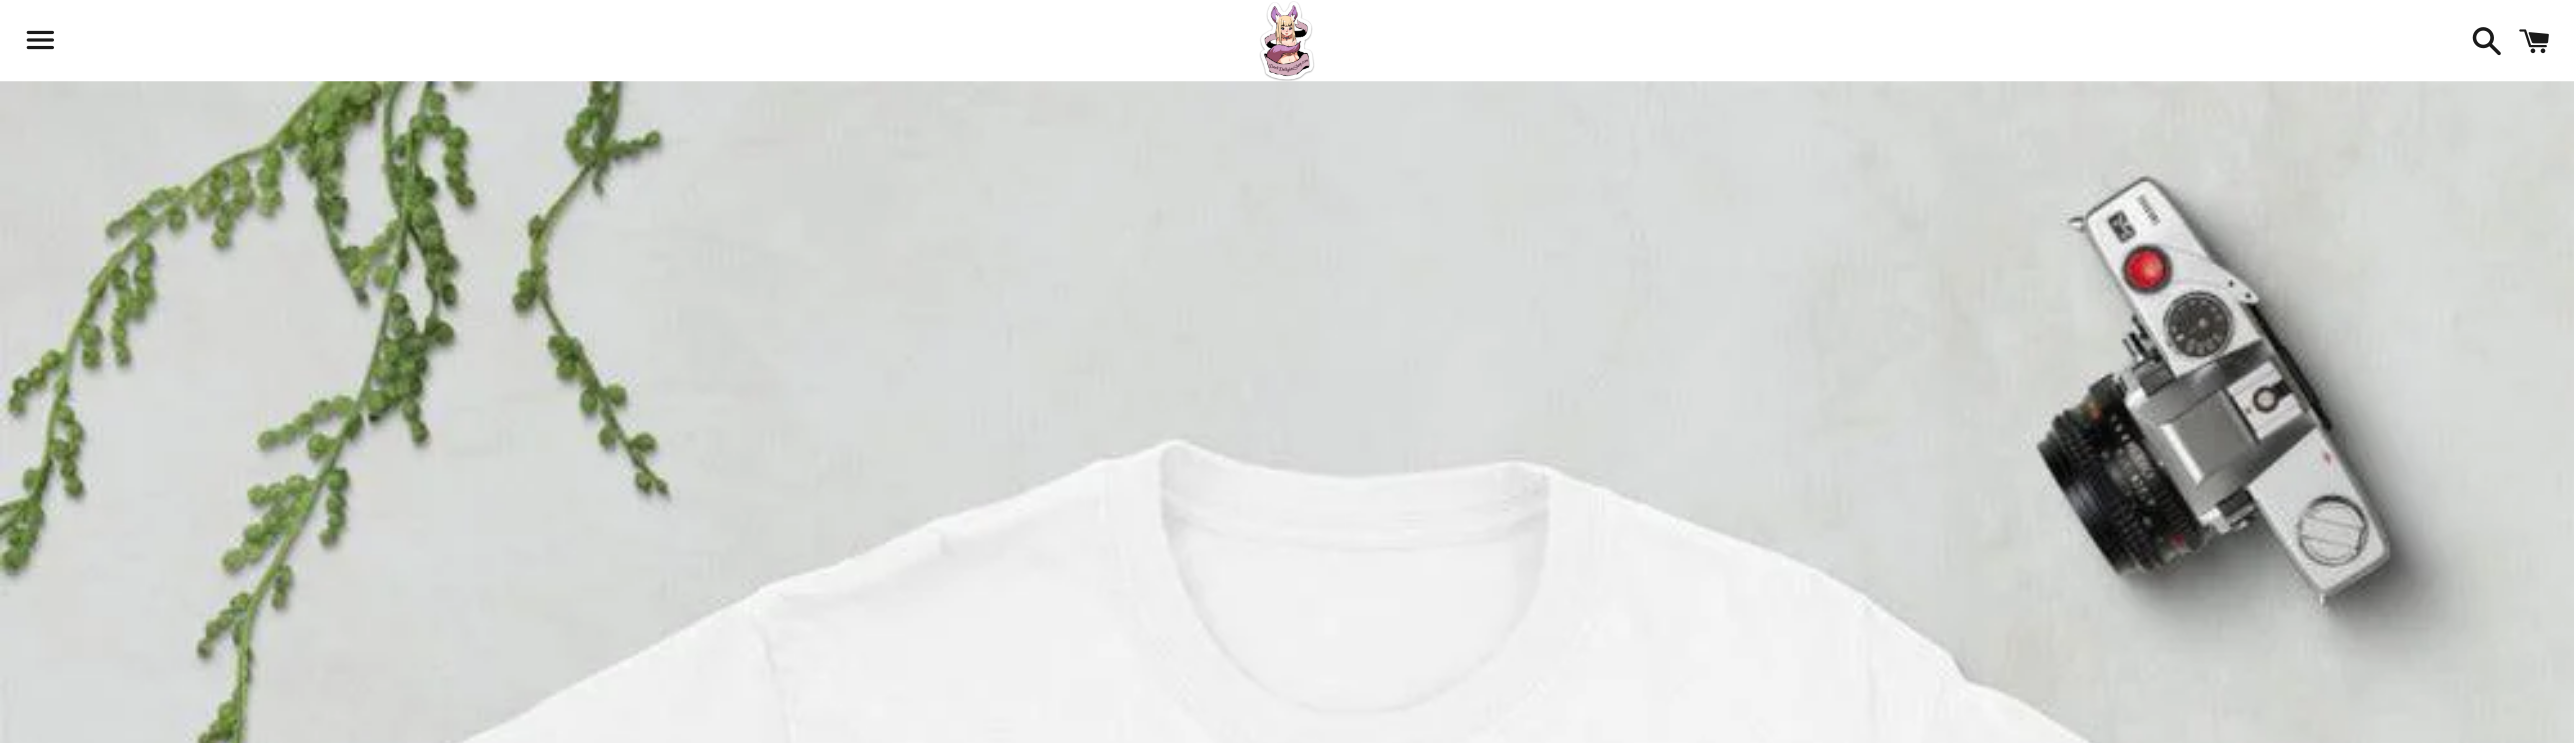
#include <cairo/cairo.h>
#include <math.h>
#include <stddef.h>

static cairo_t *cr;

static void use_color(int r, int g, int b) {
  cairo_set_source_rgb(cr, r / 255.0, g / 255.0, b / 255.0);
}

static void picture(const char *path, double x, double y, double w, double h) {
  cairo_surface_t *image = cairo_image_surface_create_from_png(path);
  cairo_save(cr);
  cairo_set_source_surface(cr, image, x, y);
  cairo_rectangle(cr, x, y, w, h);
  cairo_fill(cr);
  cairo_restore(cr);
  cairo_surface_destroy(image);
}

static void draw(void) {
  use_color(255, 255, 255);
  cairo_paint(cr);
  picture("img_01.png", 26, 30, 28, 20);
  picture("img_02.png", 1259, 1, 56, 80);
  picture("img_03.png", 2472, 27, 29, 29);
  picture("img_04.png", 2519, 29, 30, 25);
  picture("img_05.png", 0, 81, 2574, 662);
}

int main(void) {
  cairo_surface_t *surface = cairo_image_surface_create(CAIRO_FORMAT_RGB24, 2574, 743);
  cr = cairo_create(surface);
  cairo_font_options_t *options = cairo_font_options_create();
  cairo_font_options_set_hint_metrics(options, CAIRO_HINT_METRICS_OFF);
  cairo_font_options_set_hint_style(options, CAIRO_HINT_STYLE_NONE);
  cairo_set_font_options(cr, options);
  cairo_set_miter_limit(cr, 4);
  draw();
  cairo_surface_write_to_png(surface, "out.png");
  cairo_font_options_destroy(options);
  cairo_destroy(cr);
  cairo_surface_destroy(surface);
  return 0;
}
